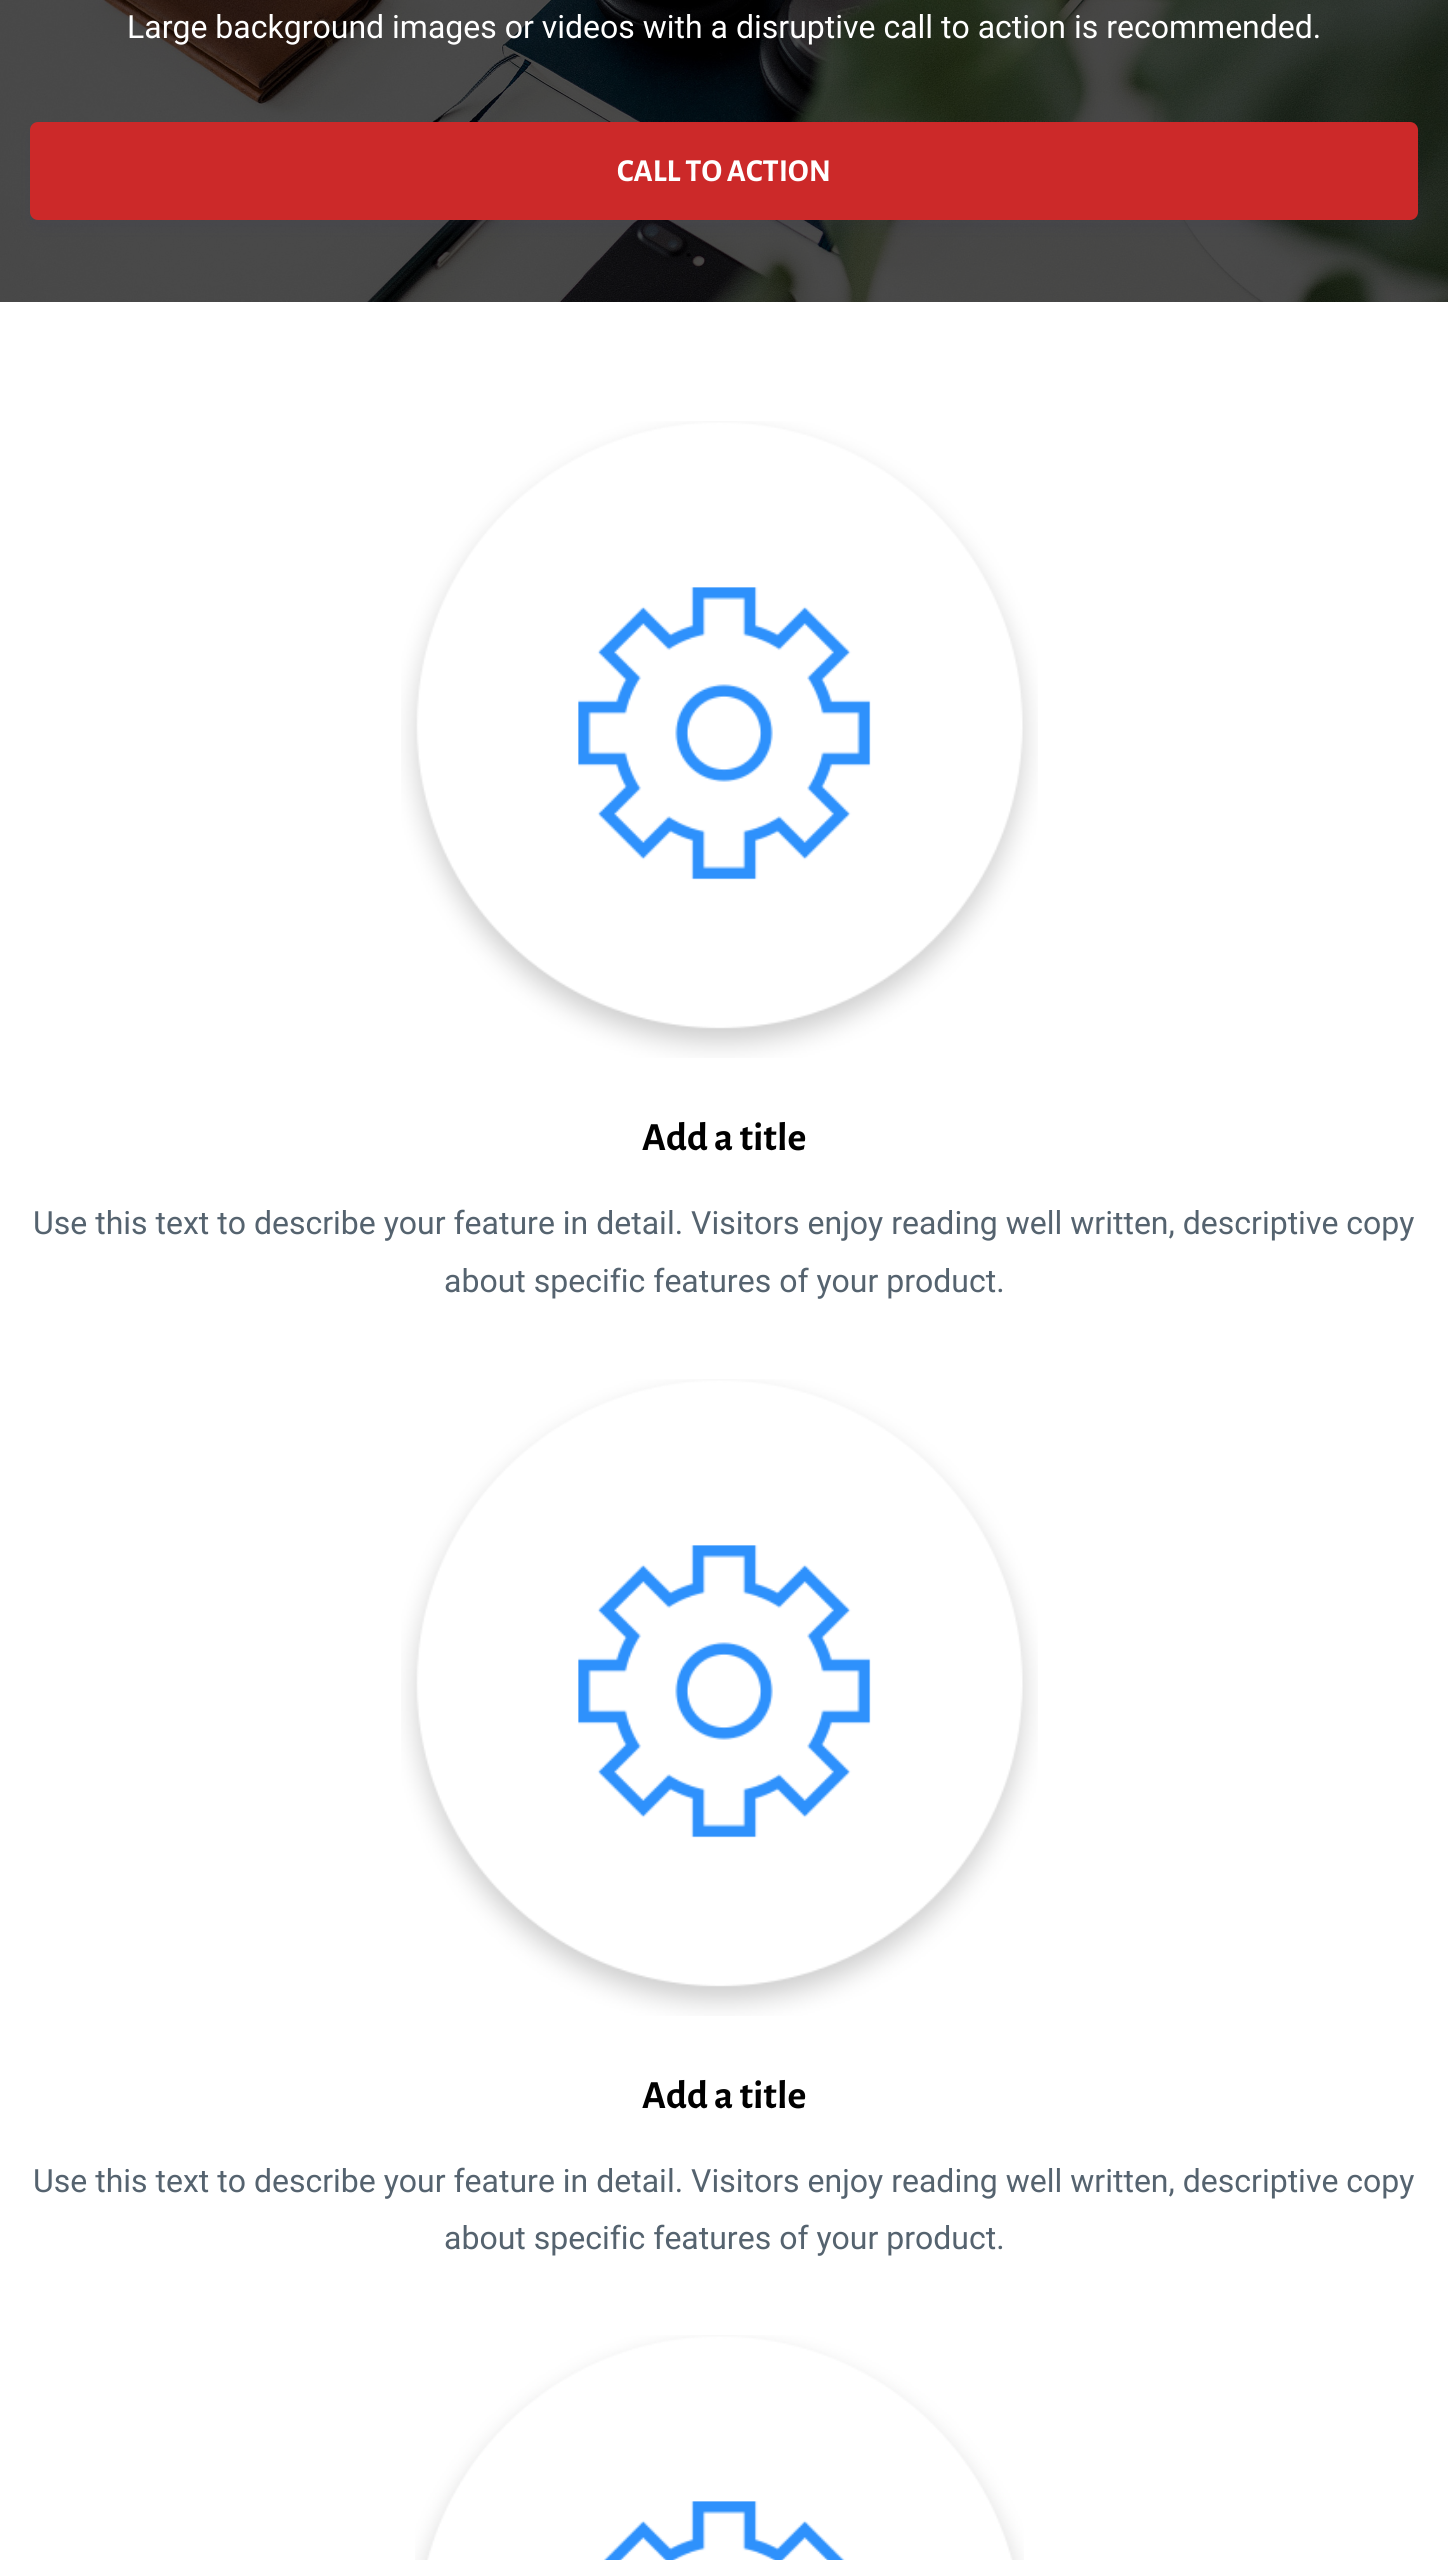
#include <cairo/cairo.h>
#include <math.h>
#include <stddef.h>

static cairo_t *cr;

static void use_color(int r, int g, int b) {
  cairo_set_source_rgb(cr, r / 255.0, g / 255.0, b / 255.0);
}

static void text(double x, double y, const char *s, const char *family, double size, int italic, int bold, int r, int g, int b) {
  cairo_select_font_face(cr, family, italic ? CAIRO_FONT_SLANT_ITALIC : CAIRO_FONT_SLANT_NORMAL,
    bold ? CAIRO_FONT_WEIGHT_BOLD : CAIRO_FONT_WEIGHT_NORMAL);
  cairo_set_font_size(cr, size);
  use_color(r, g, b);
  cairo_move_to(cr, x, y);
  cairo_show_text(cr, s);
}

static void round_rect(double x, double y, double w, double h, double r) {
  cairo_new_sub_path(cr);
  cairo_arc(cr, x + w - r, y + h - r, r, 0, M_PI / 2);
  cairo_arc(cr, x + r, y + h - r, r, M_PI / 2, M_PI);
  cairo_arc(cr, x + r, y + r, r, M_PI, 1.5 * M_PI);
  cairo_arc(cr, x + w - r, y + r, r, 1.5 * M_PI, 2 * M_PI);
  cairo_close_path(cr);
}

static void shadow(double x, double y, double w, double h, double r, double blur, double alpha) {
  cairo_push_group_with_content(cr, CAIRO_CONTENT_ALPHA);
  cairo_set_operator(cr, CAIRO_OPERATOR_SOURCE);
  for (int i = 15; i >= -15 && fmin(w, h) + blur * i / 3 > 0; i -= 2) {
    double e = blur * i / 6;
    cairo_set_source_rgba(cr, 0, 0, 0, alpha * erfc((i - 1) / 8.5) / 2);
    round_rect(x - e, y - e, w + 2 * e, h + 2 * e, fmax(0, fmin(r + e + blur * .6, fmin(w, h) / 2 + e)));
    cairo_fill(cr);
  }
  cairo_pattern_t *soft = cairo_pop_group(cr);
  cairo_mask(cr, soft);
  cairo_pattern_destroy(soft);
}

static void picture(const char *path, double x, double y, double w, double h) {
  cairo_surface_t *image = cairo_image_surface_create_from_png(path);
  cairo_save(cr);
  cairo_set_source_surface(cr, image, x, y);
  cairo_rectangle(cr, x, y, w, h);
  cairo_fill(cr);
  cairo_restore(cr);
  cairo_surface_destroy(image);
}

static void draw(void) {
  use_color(255, 255, 255);
  cairo_paint(cr);
  picture("img_01.png", 0, 0, 1448, 302);
  use_color(50, 50, 93);
  shadow(30, 130, 1388, 98, 8, 6, 0.11);
  use_color(204, 41, 41);
  round_rect(32, 124, 1384, 94, 6);
  cairo_fill_preserve(cr);
  cairo_set_line_width(cr, 4);
  cairo_stroke(cr);
  picture("img_02.png", 401, 421, 637, 637);
  picture("img_02.png", 401, 1379, 637, 637);
  picture("img_03.png", 415, 2335, 609, 225);
  text(127, 38, "Large background images or videos with a disruptive call to action is recommended.", "Roboto", 32, 0, 0, 255, 255, 255);
  text(617, 181, "CALL TO ACTION", "Alegreya Sans", 32, 0, 1, 255, 255, 255);
  text(642, 1150, "Add a title", "Alegreya Sans", 40, 0, 1, 0, 0, 0);
  text(33, 1234, "Use this text to describe your feature in detail. Visitors enjoy reading well written, descriptive copy", "Roboto", 32, 0, 0, 85, 99, 111);
  text(444, 1292, "about specific features of your product.", "Roboto", 32, 0, 0, 85, 99, 111);
  text(642, 2108, "Add a title", "Alegreya Sans", 40, 0, 1, 0, 0, 0);
  text(33, 2192, "Use this text to describe your feature in detail. Visitors enjoy reading well written, descriptive copy", "Roboto", 32, 0, 0, 85, 99, 111);
  text(444, 2249, "about specific features of your product.", "Roboto", 32, 0, 0, 85, 99, 111);
}

int main(void) {
  cairo_surface_t *surface = cairo_image_surface_create(CAIRO_FORMAT_RGB24, 1448, 2560);
  cr = cairo_create(surface);
  cairo_font_options_t *options = cairo_font_options_create();
  cairo_font_options_set_hint_metrics(options, CAIRO_HINT_METRICS_OFF);
  cairo_font_options_set_hint_style(options, CAIRO_HINT_STYLE_NONE);
  cairo_set_font_options(cr, options);
  cairo_set_miter_limit(cr, 4);
  draw();
  cairo_surface_write_to_png(surface, "out.png");
  cairo_font_options_destroy(options);
  cairo_destroy(cr);
  cairo_surface_destroy(surface);
  return 0;
}
